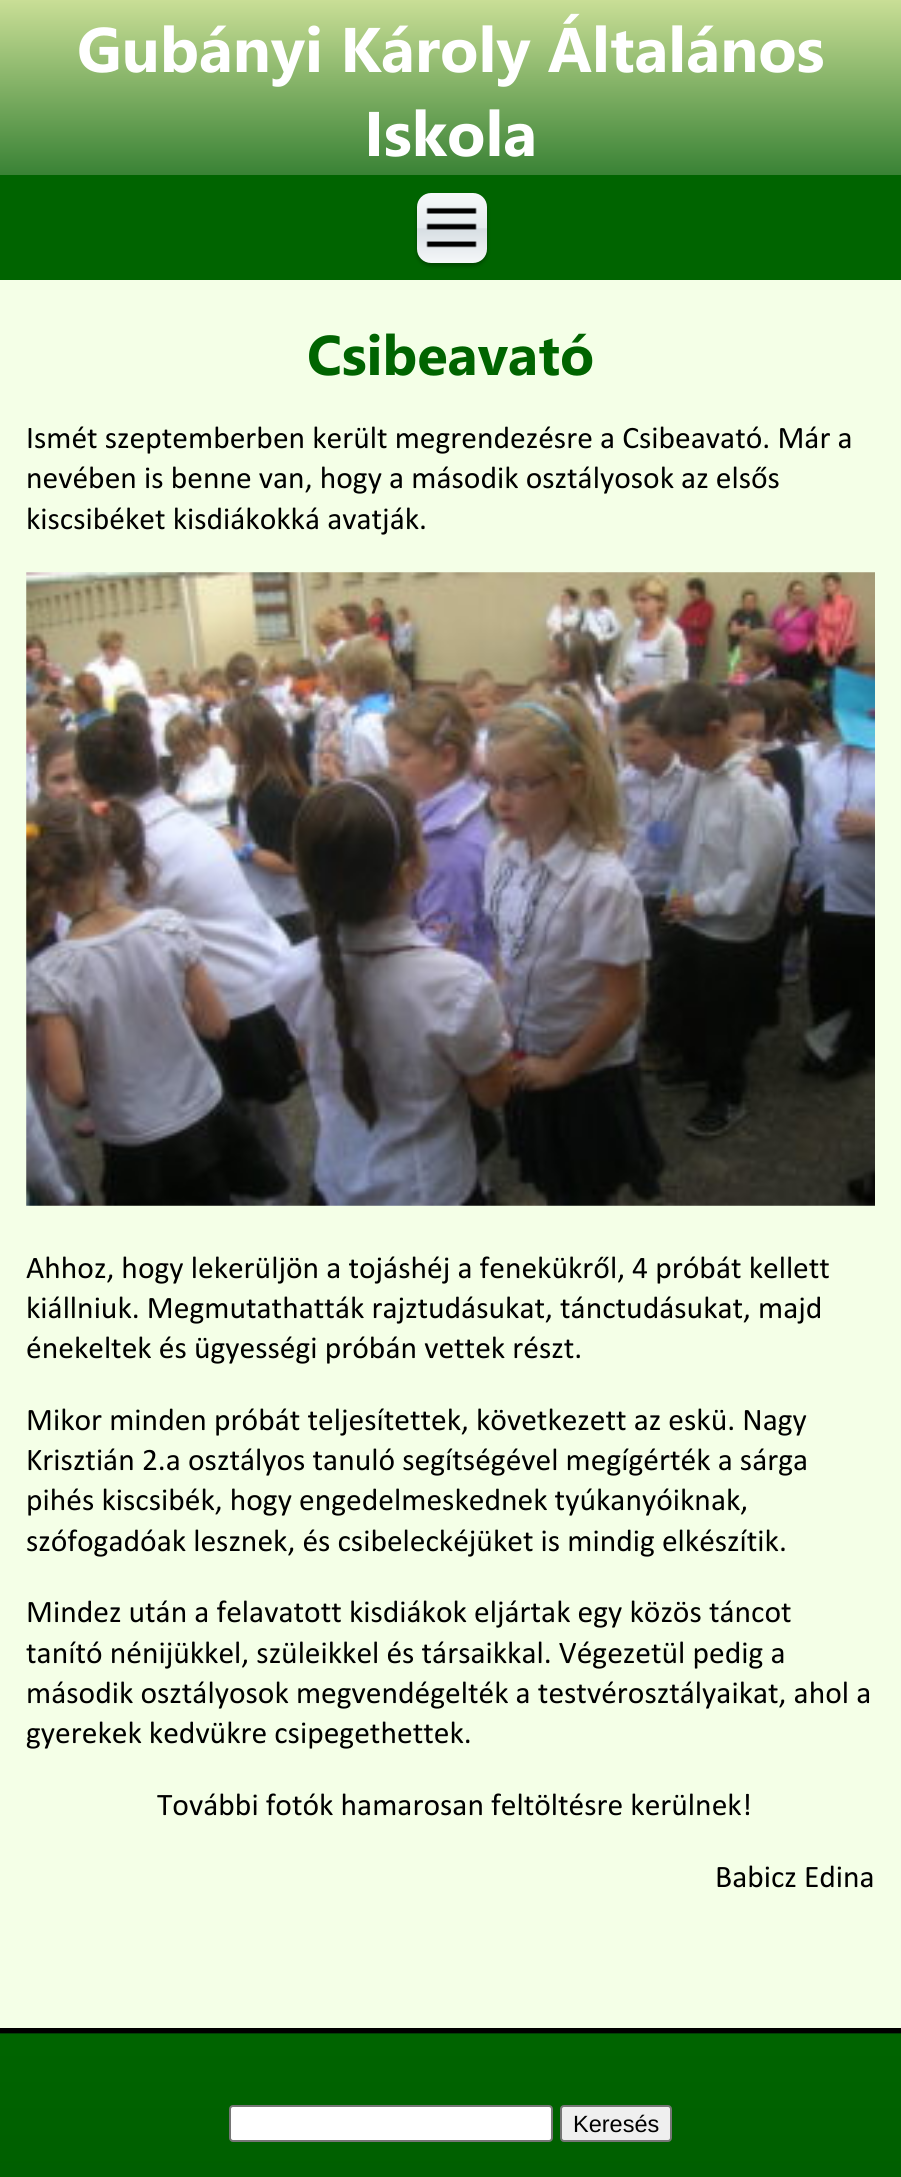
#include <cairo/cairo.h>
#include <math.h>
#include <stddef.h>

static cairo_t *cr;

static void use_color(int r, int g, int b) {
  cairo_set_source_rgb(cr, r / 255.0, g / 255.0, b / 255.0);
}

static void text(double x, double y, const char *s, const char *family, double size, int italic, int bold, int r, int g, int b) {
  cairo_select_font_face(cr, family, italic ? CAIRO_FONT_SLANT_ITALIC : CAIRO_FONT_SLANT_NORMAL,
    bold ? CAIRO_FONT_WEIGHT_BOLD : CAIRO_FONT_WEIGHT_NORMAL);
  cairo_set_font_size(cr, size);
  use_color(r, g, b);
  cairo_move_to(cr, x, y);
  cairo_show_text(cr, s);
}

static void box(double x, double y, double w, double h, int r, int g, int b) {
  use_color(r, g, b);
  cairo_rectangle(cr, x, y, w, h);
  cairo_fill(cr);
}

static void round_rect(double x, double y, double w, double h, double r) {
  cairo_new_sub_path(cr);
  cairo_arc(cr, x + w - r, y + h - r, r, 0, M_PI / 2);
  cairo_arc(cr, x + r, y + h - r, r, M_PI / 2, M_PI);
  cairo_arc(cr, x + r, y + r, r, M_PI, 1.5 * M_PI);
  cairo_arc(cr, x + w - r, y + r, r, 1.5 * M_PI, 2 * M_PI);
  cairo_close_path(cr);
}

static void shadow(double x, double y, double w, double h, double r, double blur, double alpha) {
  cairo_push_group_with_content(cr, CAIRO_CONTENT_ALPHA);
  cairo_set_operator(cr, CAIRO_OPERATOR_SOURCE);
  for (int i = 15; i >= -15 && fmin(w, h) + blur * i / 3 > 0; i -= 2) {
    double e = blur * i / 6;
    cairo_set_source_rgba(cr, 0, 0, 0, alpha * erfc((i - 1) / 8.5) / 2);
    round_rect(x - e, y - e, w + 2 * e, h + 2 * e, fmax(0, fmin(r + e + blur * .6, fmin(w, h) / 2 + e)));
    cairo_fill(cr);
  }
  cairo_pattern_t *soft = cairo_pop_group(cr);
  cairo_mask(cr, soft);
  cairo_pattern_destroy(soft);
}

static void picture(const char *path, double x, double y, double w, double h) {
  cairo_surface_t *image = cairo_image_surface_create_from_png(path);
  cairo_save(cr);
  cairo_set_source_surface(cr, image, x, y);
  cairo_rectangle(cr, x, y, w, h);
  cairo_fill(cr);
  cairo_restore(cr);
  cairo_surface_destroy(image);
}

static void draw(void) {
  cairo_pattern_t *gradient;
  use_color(244, 255, 231);
  cairo_paint(cr);
  gradient = cairo_pattern_create_linear(451, 0, 451, 175);
  cairo_pattern_add_color_stop_rgba(gradient, 0, 0.788, 0.871, 0.588, 1);
  cairo_pattern_add_color_stop_rgba(gradient, 0.44, 0.541, 0.714, 0.42, 1);
  cairo_pattern_add_color_stop_rgba(gradient, 1, 0.224, 0.51, 0.208, 1);
  cairo_set_source(cr, gradient);
  cairo_pattern_destroy(gradient);
  cairo_rectangle(cr, 0, 0, 901, 175);
  cairo_fill(cr);
  box(0, 175, 901, 105, 0, 100, 0);
  use_color(0, 0, 0);
  shadow(417, 196, 70, 70, 14, 2, 0.3);
  gradient = cairo_pattern_create_linear(452, 193, 452, 263);
  cairo_pattern_add_color_stop_rgba(gradient, 0, 0.965, 0.973, 0.976, 1);
  cairo_pattern_add_color_stop_rgba(gradient, 0.5, 0.898, 0.922, 0.933, 1);
  cairo_pattern_add_color_stop_rgba(gradient, 0.51, 0.843, 0.871, 0.89, 1);
  cairo_pattern_add_color_stop_rgba(gradient, 1, 0.961, 0.969, 0.976, 1);
  cairo_set_source(cr, gradient);
  cairo_pattern_destroy(gradient);
  round_rect(417, 193, 70, 70, 14);
  cairo_fill(cr);
  picture("img_01.png", 426, 207, 51, 41);
  picture("img_02.png", 26, 572, 849, 634);
  gradient = cairo_pattern_create_linear(451, 1052, 451, 2034);
  cairo_pattern_add_color_stop_rgba(gradient, 0.01, 0, 0.392, 0, 1);
  cairo_pattern_add_color_stop_rgba(gradient, 1, 0, 0.247, 0.016, 1);
  cairo_set_source(cr, gradient);
  cairo_pattern_destroy(gradient);
  cairo_rectangle(cr, 0, 2033, 901, 1);
  cairo_fill(cr);
  gradient = cairo_pattern_create_linear(451, 2034, 451, 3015);
  cairo_pattern_add_color_stop_rgba(gradient, 0.01, 0, 0.392, 0, 1);
  cairo_pattern_add_color_stop_rgba(gradient, 1, 0, 0.247, 0.016, 1);
  cairo_set_source(cr, gradient);
  cairo_pattern_destroy(gradient);
  cairo_rectangle(cr, 0, 2034, 901, 143);
  cairo_fill(cr);
  box(0, 2028, 901, 5, 0, 0, 0);
  use_color(255, 255, 255);
  round_rect(230, 2106, 322, 35, 3);
  cairo_fill_preserve(cr);
  use_color(118, 118, 118);
  cairo_stroke(cr);
  use_color(239, 239, 239);
  round_rect(561, 2106, 110, 35, 3);
  cairo_fill_preserve(cr);
  use_color(118, 118, 118);
  cairo_stroke(cr);
  text(77, 72, "Gubányi Károly Általános", "Segoe UI", 63, 0, 1, 255, 255, 255);
  text(364, 156, "Iskola", "Segoe UI", 63, 0, 1, 255, 255, 255);
  text(307, 375, "Csibeavató", "Segoe UI", 56, 0, 1, 0, 100, 0);
  text(26, 448, "Ismét szeptemberben került megrendezésre a Csibeavató. Már a", "Calibri", 31.5, 0, 0, 0, 0, 0);
  text(26, 488, "nevében is benne van, hogy a második osztályosok az elsős", "Calibri", 31.5, 0, 0, 0, 0, 0);
  text(26, 529, "kiscsibéket kisdiákokká avatják.", "Calibri", 31.5, 0, 0, 0, 0, 0);
  text(26, 1278, "Ahhoz, hogy lekerüljön a tojáshéj a fenekükről, 4 próbát kellett", "Calibri", 31.5, 0, 0, 0, 0, 0);
  text(26, 1318, "kiállniuk. Megmutathatták rajztudásukat, tánctudásukat, majd", "Calibri", 31.5, 0, 0, 0, 0, 0);
  text(26, 1358, "énekeltek és ügyességi próbán vettek részt.", "Calibri", 31.5, 0, 0, 0, 0, 0);
  text(26, 1430, "Mikor minden próbát teljesítettek, következett az eskü. Nagy", "Calibri", 31.5, 0, 0, 0, 0, 0);
  text(26, 1470, "Krisztián 2.a osztályos tanuló segítségével megígérték a sárga", "Calibri", 31.5, 0, 0, 0, 0, 0);
  text(26, 1510, "pihés kiscsibék, hogy engedelmeskednek tyúkanyóiknak,", "Calibri", 31.5, 0, 0, 0, 0, 0);
  text(26, 1551, "szófogadóak lesznek, és csibeleckéjüket is mindig elkészítik.", "Calibri", 31.5, 0, 0, 0, 0, 0);
  text(26, 1622, "Mindez után a felavatott kisdiákok eljártak egy közös táncot", "Calibri", 31.5, 0, 0, 0, 0, 0);
  text(26, 1663, "tanító nénijükkel, szüleikkel és társaikkal. Végezetül pedig a", "Calibri", 31.5, 0, 0, 0, 0, 0);
  text(26, 1703, "második osztályosok megvendégelték a testvérosztályaikat, ahol a", "Calibri", 31.5, 0, 0, 0, 0, 0);
  text(26, 1743, "gyerekek kedvükre csipegethettek.", "Calibri", 31.5, 0, 0, 0, 0, 0);
  text(157, 1815, "További fotók hamarosan feltöltésre kerülnek!", "Calibri", 31.5, 0, 0, 0, 0, 0);
  text(715, 1887, "Babicz Edina", "Calibri", 31.5, 0, 0, 0, 0, 0);
  text(573, 2132, "Keresés", "Liberation Sans", 23.5, 0, 0, 0, 0, 0);
}

int main(void) {
  cairo_surface_t *surface = cairo_image_surface_create(CAIRO_FORMAT_RGB24, 901, 2177);
  cr = cairo_create(surface);
  cairo_font_options_t *options = cairo_font_options_create();
  cairo_font_options_set_hint_metrics(options, CAIRO_HINT_METRICS_OFF);
  cairo_font_options_set_hint_style(options, CAIRO_HINT_STYLE_NONE);
  cairo_set_font_options(cr, options);
  cairo_set_miter_limit(cr, 4);
  draw();
  cairo_surface_write_to_png(surface, "out.png");
  cairo_font_options_destroy(options);
  cairo_destroy(cr);
  cairo_surface_destroy(surface);
  return 0;
}
